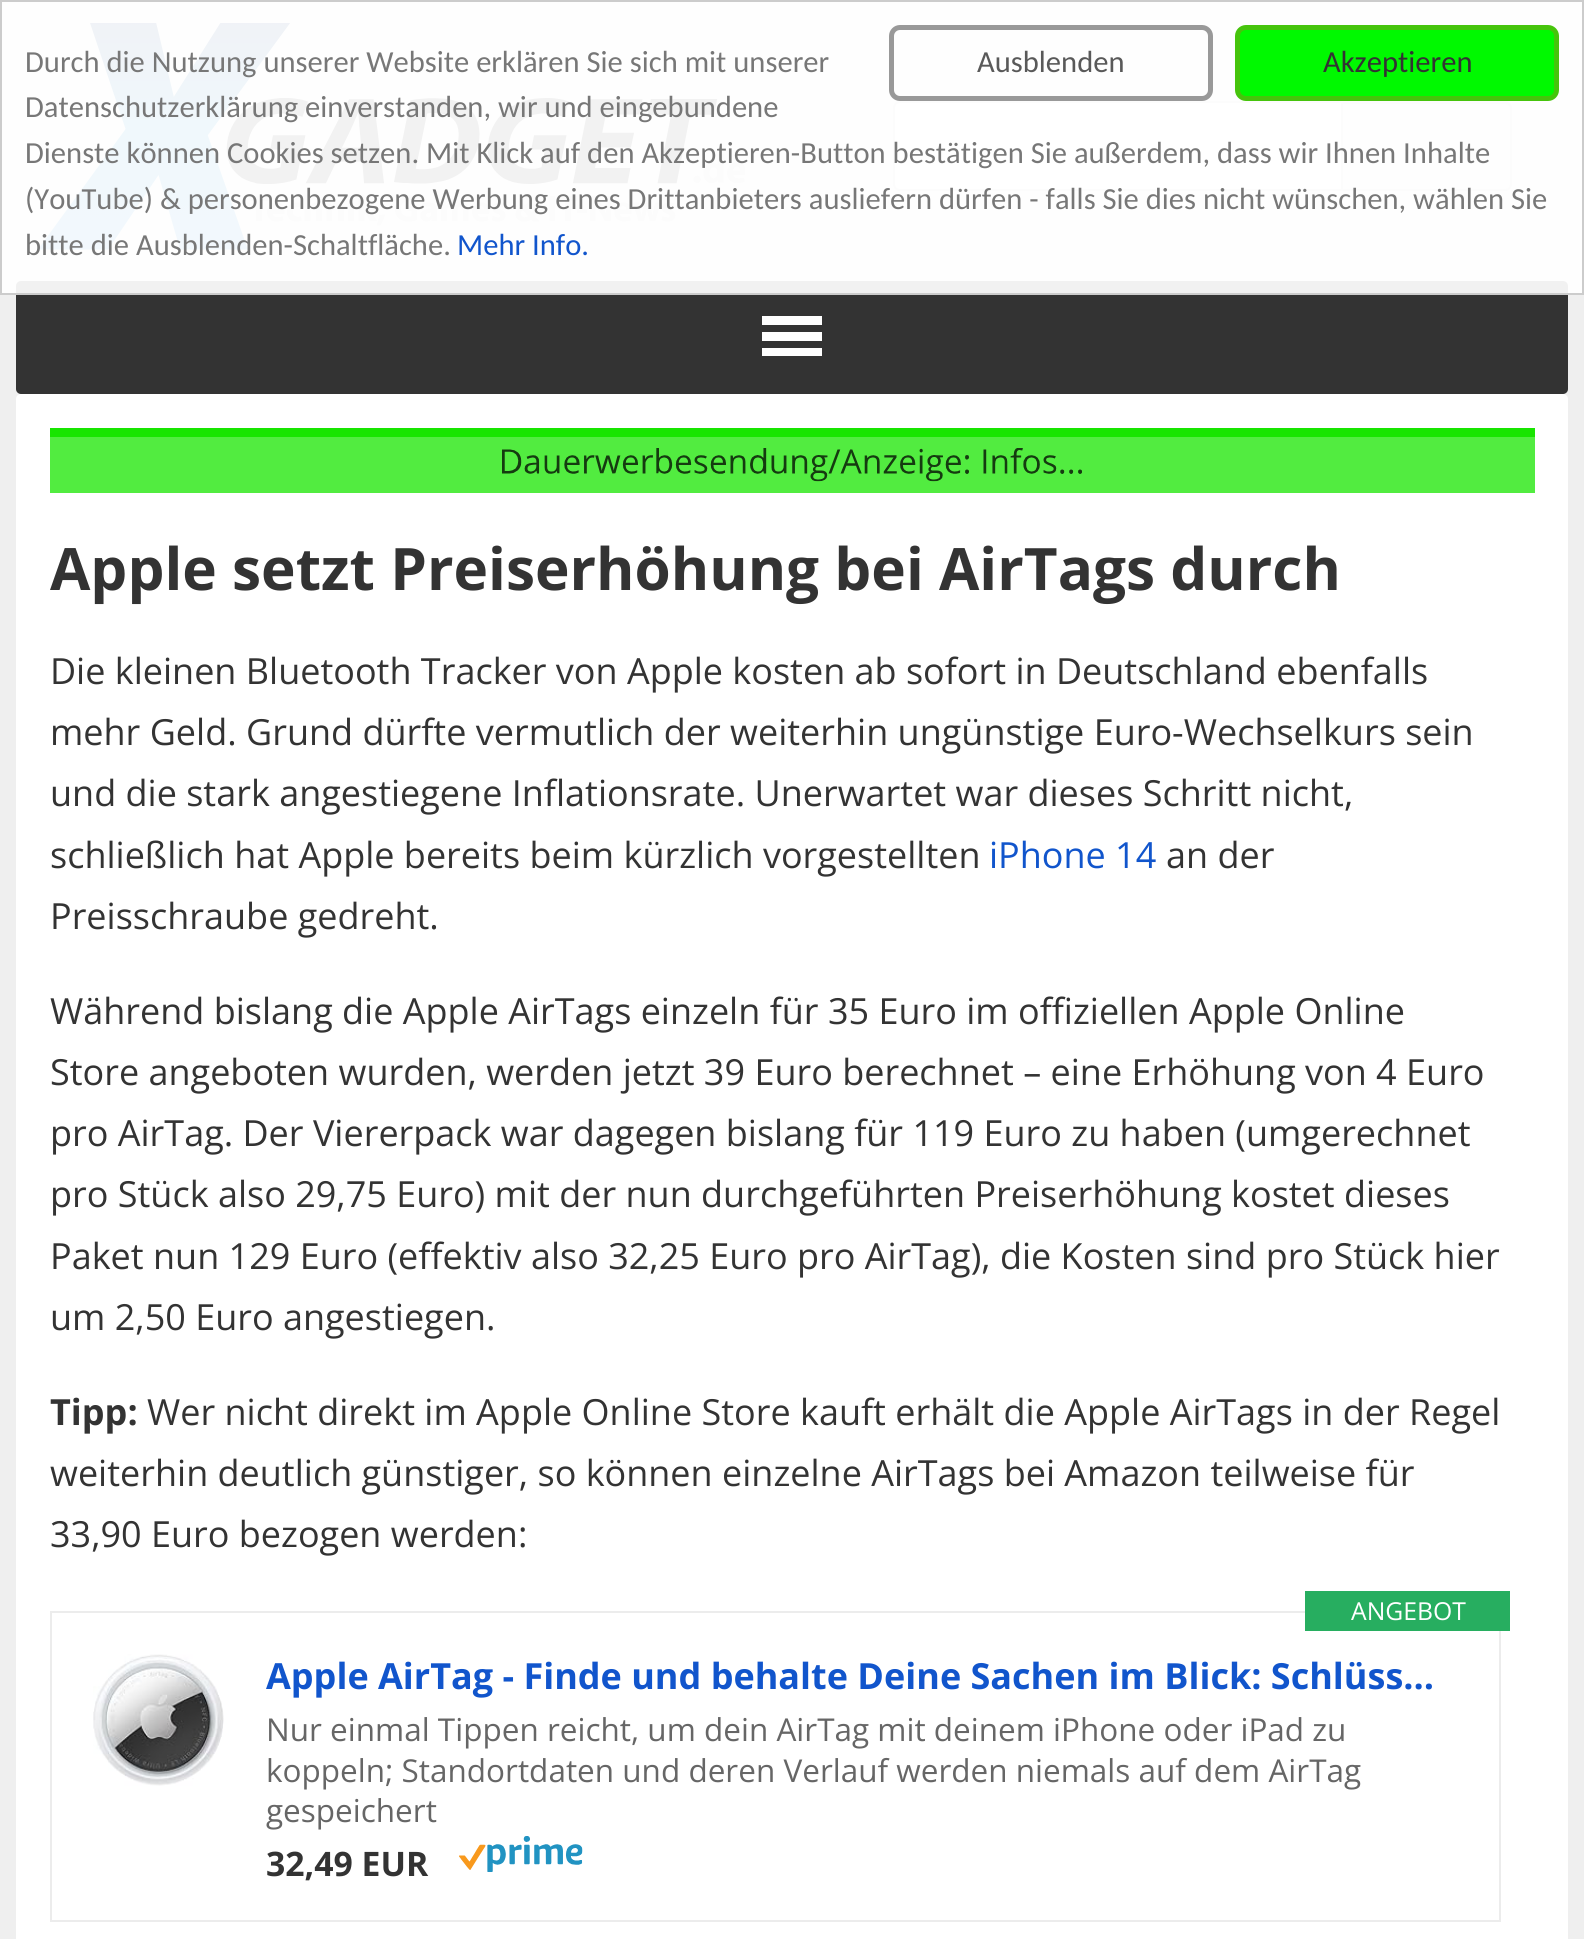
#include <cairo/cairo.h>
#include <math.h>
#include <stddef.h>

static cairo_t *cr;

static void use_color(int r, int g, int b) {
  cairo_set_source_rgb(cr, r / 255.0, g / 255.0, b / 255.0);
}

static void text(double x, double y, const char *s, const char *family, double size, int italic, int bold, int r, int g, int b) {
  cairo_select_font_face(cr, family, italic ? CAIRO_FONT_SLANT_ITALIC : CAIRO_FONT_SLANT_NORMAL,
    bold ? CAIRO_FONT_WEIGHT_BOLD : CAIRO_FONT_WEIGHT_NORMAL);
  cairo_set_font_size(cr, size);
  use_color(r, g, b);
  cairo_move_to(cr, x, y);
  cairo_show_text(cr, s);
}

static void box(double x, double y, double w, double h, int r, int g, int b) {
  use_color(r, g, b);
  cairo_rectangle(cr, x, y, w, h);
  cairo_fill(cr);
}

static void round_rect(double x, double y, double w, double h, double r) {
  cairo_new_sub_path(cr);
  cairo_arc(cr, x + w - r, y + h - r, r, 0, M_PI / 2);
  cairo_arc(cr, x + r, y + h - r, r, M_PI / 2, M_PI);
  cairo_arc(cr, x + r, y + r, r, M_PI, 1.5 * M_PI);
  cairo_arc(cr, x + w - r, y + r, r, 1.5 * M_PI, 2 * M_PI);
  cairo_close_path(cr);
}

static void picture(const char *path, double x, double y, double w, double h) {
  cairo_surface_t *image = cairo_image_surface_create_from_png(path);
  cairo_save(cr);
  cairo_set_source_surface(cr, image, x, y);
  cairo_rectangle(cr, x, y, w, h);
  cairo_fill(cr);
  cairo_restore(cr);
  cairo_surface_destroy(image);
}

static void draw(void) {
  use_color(239, 239, 239);
  cairo_paint(cr);
  picture("img_01.png", 38, 23, 707, 227);
  use_color(255, 255, 255);
  cairo_new_path(cr);
  cairo_move_to(cr, 900, 102);
  cairo_line_to(cr, 1342, 102);
  cairo_line_to(cr, 1342, 190);
  cairo_line_to(cr, 900, 190);
  cairo_curve_to(cr, 896.5, 190, 894, 187.5, 894, 184);
  cairo_line_to(cr, 894, 108);
  cairo_curve_to(cr, 894, 104.5, 896.5, 102, 900, 102);
  cairo_close_path(cr);
  cairo_fill_preserve(cr);
  use_color(204, 204, 204);
  cairo_stroke(cr);
  cairo_set_fill_rule(cr, CAIRO_FILL_RULE_EVEN_ODD);
  cairo_new_path(cr);
  cairo_move_to(cr, 1343, 101);
  cairo_line_to(cr, 1505, 101);
  cairo_curve_to(cr, 1509, 101, 1512, 104, 1512, 108);
  cairo_line_to(cr, 1512, 184);
  cairo_curve_to(cr, 1512, 188, 1509, 191, 1505, 191);
  cairo_line_to(cr, 1343, 191);
  cairo_close_path(cr);
  cairo_move_to(cr, 1343, 104);
  cairo_line_to(cr, 1505, 104);
  cairo_curve_to(cr, 1508, 104, 1510, 106, 1510, 108);
  cairo_line_to(cr, 1510, 184);
  cairo_curve_to(cr, 1510, 187, 1508, 189, 1505, 189);
  cairo_line_to(cr, 1343, 189);
  cairo_close_path(cr);
  cairo_fill(cr);
  use_color(51, 51, 51);
  round_rect(16, 281, 1552, 113, 5);
  cairo_fill(cr);
  cairo_set_source_rgba(cr, 1, 1, 1, 0.93);
  cairo_rectangle(cr, 1, 1, 1582, 293);
  cairo_fill_preserve(cr);
  use_color(204, 204, 204);
  cairo_stroke(cr);
  round_rect(891.5, 27.5, 319, 71, 8.5);
  use_color(153, 153, 153);
  cairo_set_line_width(cr, 5);
  cairo_stroke(cr);
  use_color(0, 249, 0);
  round_rect(1237.5, 27.5, 319, 71, 8.5);
  cairo_fill_preserve(cr);
  use_color(70, 196, 12);
  cairo_stroke(cr);
  box(762, 316, 60, 9, 255, 255, 255);
  box(762, 332, 60, 9, 255, 255, 255);
  box(762, 348, 60, 8, 255, 255, 255);
  round_rect(16, 394, 1552, 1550, 5);
  cairo_fill(cr);
  box(50, 428, 1485, 9, 24, 229, 0);
  box(50, 437, 1485, 56, 82, 236, 64);
  picture("img_02.png", 502, 448, 580, 34);
  cairo_rectangle(cr, 51, 1612, 1449, 309);
  use_color(236, 236, 236);
  cairo_set_line_width(cr, 2);
  cairo_stroke(cr);
  box(1305, 1591, 205, 40, 39, 174, 96);
  picture("img_03.png", 93, 1654, 131, 132);
  picture("img_04.png", 459, 1836, 124, 36);
  text(25, 72, "Durch die Nutzung unserer Website erklären Sie sich mit unserer", "Carlito", 30.6, 0, 0, 119, 119, 119);
  text(25, 117, "Datenschutzerklärung einverstanden, wir und eingebundene", "Carlito", 30.6, 0, 0, 119, 119, 119);
  text(25, 163, "Dienste können Cookies setzen. Mit Klick auf den Akzeptieren-Button bestätigen Sie außerdem, dass wir Ihnen Inhalte", "Carlito", 30.6, 0, 0, 119, 119, 119);
  text(25, 209, "(YouTube) & personenbezogene Werbung eines Drittanbieters ausliefern dürfen - falls Sie dies nicht wünschen, wählen Sie", "Carlito", 30.6, 0, 0, 119, 119, 119);
  text(25, 255, "bitte die Ausblenden-Schaltfläche.", "Carlito", 30.6, 0, 0, 119, 119, 119);
  text(457, 255, "Mehr Info.", "Carlito", 30.6, 0, 0, 17, 85, 204);
  text(977, 72, "Ausblenden", "Carlito", 30.6, 0, 0, 89, 89, 89);
  text(1323, 72, "Akzeptieren", "Carlito", 30.6, 0, 0, 51, 51, 51);
  text(50, 590, "Apple setzt Preiserhöhung bei AirTags durch", "Open Sans", 58.5, 0, 1, 51, 51, 51);
  text(50, 684, "Die kleinen Bluetooth Tracker von Apple kosten ab sofort in Deutschland ebenfalls", "Open Sans", 36, 0, 0, 51, 51, 51);
  text(50, 745, "mehr Geld. Grund dürfte vermutlich der weiterhin ungünstige Euro-Wechselkurs sein", "Open Sans", 36, 0, 0, 51, 51, 51);
  text(50, 806, "und die stark angestiegene Inflationsrate. Unerwartet war dieses Schritt nicht,", "Open Sans", 36, 0, 0, 51, 51, 51);
  text(50, 868, "schließlich hat Apple bereits beim kürzlich vorgestellten", "Open Sans", 36, 0, 0, 51, 51, 51);
  text(989, 868, "iPhone 14", "Open Sans", 36, 0, 0, 17, 85, 204);
  text(1166, 868, "an der", "Open Sans", 36, 0, 0, 51, 51, 51);
  text(50, 929, "Preisschraube gedreht.", "Open Sans", 36, 0, 0, 51, 51, 51);
  text(50, 1024, "Während bislang die Apple AirTags einzeln für 35 Euro im offiziellen Apple Online", "Open Sans", 36, 0, 0, 51, 51, 51);
  text(50, 1085, "Store angeboten wurden, werden jetzt 39 Euro berechnet – eine Erhöhung von 4 Euro", "Open Sans", 36, 0, 0, 51, 51, 51);
  text(50, 1146, "pro AirTag. Der Viererpack war dagegen bislang für 119 Euro zu haben (umgerechnet", "Open Sans", 36, 0, 0, 51, 51, 51);
  text(50, 1207, "pro Stück also 29,75 Euro) mit der nun durchgeführten Preiserhöhung kostet dieses", "Open Sans", 36, 0, 0, 51, 51, 51);
  text(50, 1269, "Paket nun 129 Euro (effektiv also 32,25 Euro pro AirTag), die Kosten sind pro Stück hier", "Open Sans", 36, 0, 0, 51, 51, 51);
  text(50, 1330, "um 2,50 Euro angestiegen.", "Open Sans", 36, 0, 0, 51, 51, 51);
  text(50, 1425, "Tipp:", "Open Sans", 36, 0, 1, 51, 51, 51);
  text(147, 1425, "Wer nicht direkt im Apple Online Store kauft erhält die Apple AirTags in der Regel", "Open Sans", 36, 0, 0, 51, 51, 51);
  text(50, 1486, "weiterhin deutlich günstiger, so können einzelne AirTags bei Amazon teilweise für", "Open Sans", 36, 0, 0, 51, 51, 51);
  text(50, 1547, "33,90 Euro bezogen werden:", "Open Sans", 36, 0, 0, 51, 51, 51);
  text(1351, 1620, "ANGEBOT", "Open Sans", 24.75, 0, 0, 255, 255, 255);
  text(266, 1689, "Apple AirTag - Finde und behalte Deine Sachen im Blick: Schlüss…", "Open Sans", 36, 0, 1, 17, 85, 204);
  text(266, 1741, "Nur einmal Tippen reicht, um dein AirTag mit deinem iPhone oder iPad zu", "Open Sans", 31.5, 0, 0, 102, 102, 102);
  text(266, 1782, "koppeln; Standortdaten und deren Verlauf werden niemals auf dem AirTag", "Open Sans", 31.5, 0, 0, 102, 102, 102);
  text(266, 1822, "gespeichert", "Open Sans", 31.5, 0, 0, 102, 102, 102);
  text(266, 1876, "32,49 EUR", "Open Sans", 33.75, 0, 1, 51, 51, 51);
}

int main(void) {
  cairo_surface_t *surface = cairo_image_surface_create(CAIRO_FORMAT_RGB24, 1584, 1939);
  cr = cairo_create(surface);
  cairo_font_options_t *options = cairo_font_options_create();
  cairo_font_options_set_hint_metrics(options, CAIRO_HINT_METRICS_OFF);
  cairo_font_options_set_hint_style(options, CAIRO_HINT_STYLE_NONE);
  cairo_set_font_options(cr, options);
  cairo_set_miter_limit(cr, 4);
  draw();
  cairo_surface_write_to_png(surface, "out.png");
  cairo_font_options_destroy(options);
  cairo_destroy(cr);
  cairo_surface_destroy(surface);
  return 0;
}
